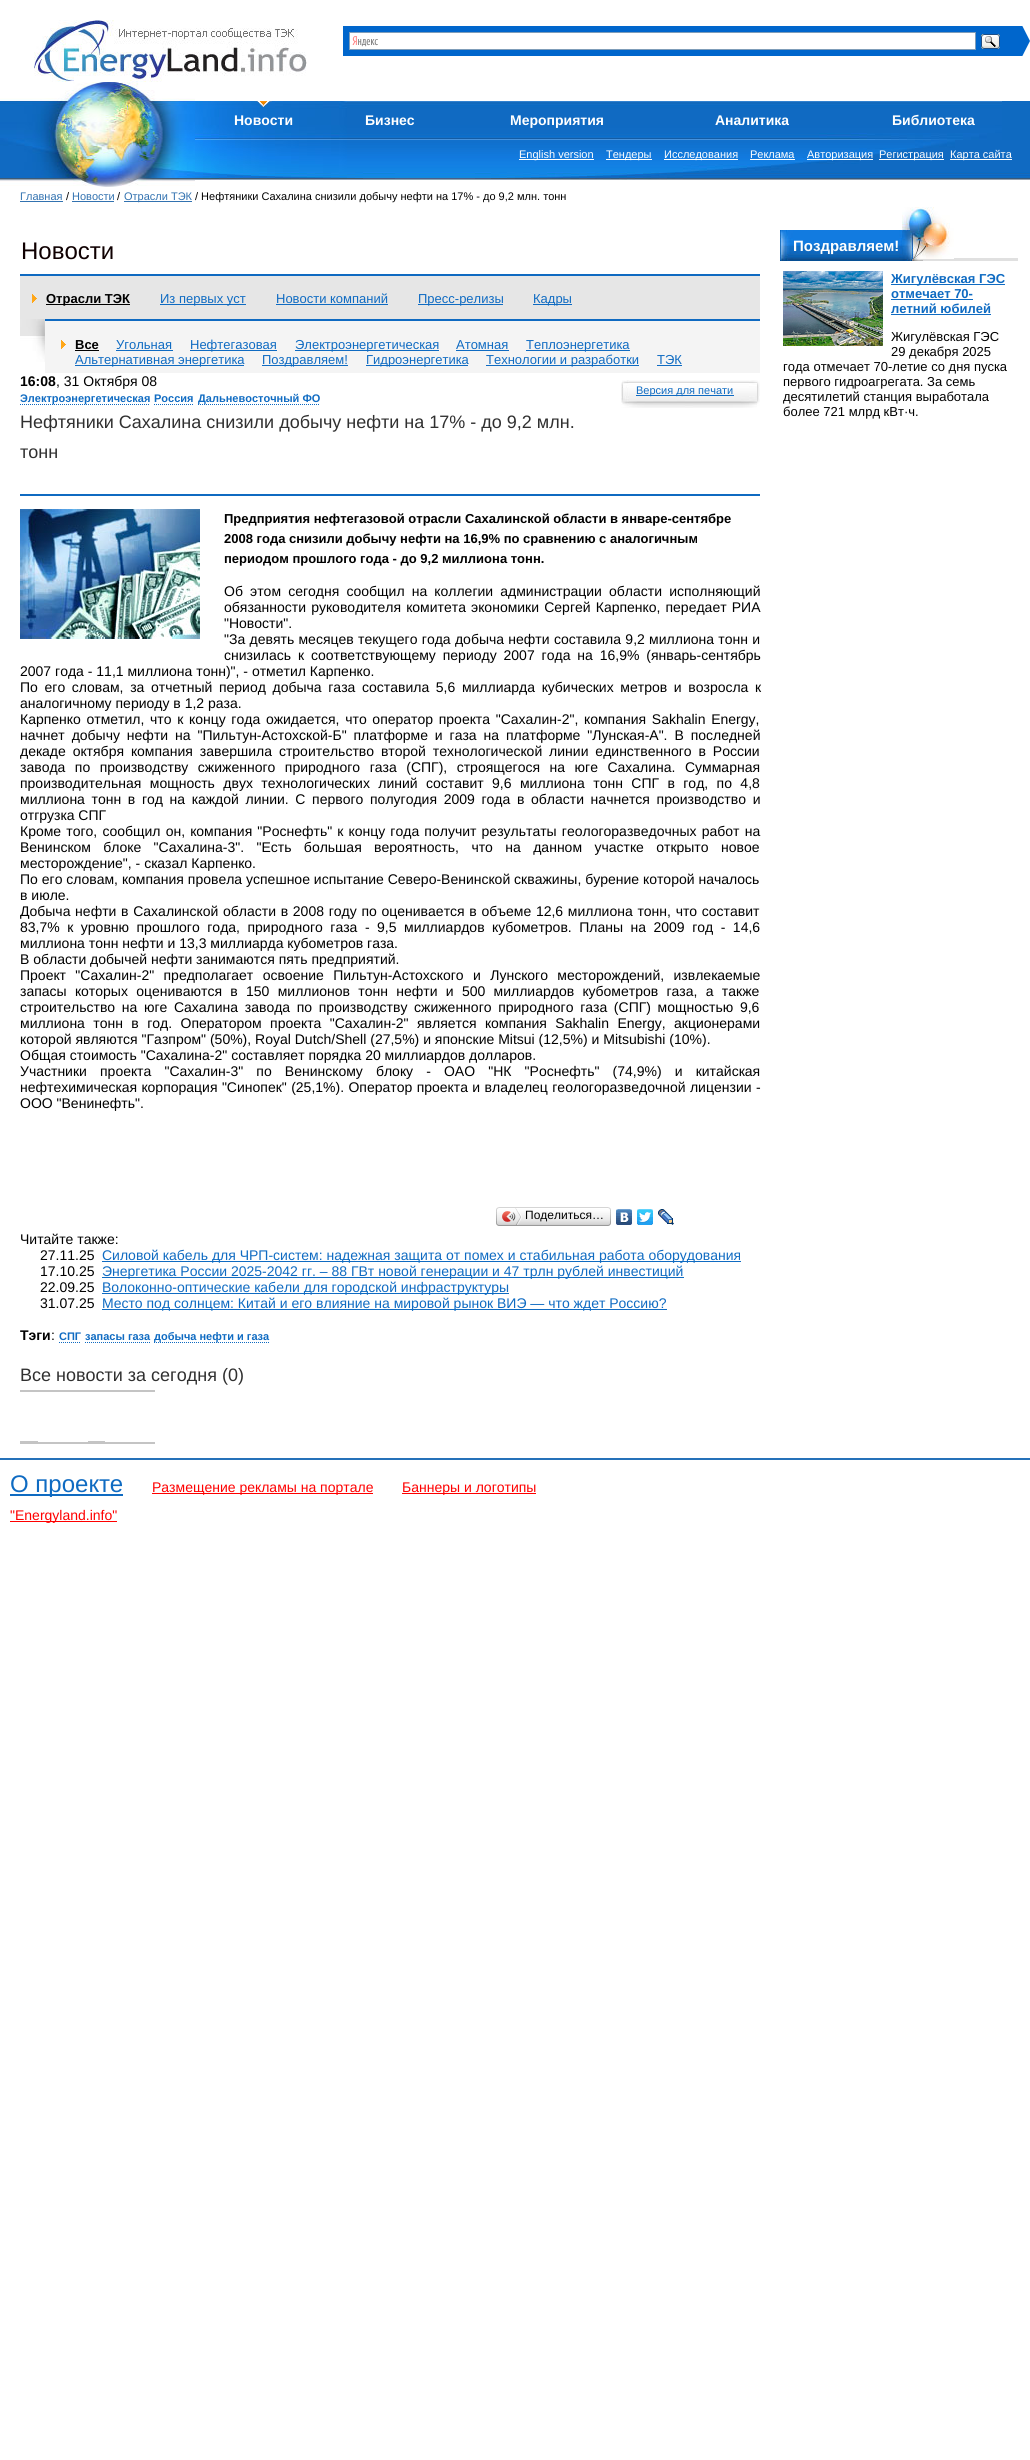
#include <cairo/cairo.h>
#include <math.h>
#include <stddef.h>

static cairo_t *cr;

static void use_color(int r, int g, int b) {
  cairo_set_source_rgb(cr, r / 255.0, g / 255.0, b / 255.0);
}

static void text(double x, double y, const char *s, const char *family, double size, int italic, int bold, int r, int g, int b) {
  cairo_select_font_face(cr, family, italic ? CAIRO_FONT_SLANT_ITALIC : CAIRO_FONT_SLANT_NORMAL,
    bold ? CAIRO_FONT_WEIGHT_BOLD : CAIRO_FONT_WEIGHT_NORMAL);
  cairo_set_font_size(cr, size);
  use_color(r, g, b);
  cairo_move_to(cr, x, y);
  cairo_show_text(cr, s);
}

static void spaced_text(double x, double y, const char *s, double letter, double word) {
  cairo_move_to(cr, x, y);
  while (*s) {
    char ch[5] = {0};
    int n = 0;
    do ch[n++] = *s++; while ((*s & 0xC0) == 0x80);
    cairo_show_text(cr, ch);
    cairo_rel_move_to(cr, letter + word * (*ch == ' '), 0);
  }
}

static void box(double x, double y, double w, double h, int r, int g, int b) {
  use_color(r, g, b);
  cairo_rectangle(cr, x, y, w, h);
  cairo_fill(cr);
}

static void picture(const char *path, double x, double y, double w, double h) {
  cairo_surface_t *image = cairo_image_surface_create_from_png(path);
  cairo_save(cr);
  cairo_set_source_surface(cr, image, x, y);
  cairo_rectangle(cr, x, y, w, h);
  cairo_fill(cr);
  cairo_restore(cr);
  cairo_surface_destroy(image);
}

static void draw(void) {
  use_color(255, 255, 255);
  cairo_paint(cr);
  picture("img_01.png", 34, 20, 273, 62);
  box(343, 26, 657, 30, 0, 102, 204);
  box(350, 33, 625, 16, 255, 255, 255);
  picture("img_02.png", 352, 36, 26, 11);
  cairo_rectangle(cr, 349.5, 32.5, 626, 17);
  use_color(127, 157, 185);
  cairo_set_line_width(cr, 1);
  cairo_stroke(cr);
  picture("img_03.png", 981, 34, 19, 15);
  cairo_save(cr);
  cairo_rectangle(cr, 1000, 26, 30, 30);
  cairo_clip(cr);
  use_color(0, 102, 204);
  cairo_new_path(cr);
  cairo_move_to(cr, 1000, 100);
  cairo_line_to(cr, 1000, -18);
  cairo_line_to(cr, 1030, 41);
  cairo_close_path(cr);
  cairo_fill(cr);
  cairo_restore(cr);
  picture("img_04.png", 0, 82, 195, 105);
  box(1002, 101, 28, 39, 15, 106, 193);
  picture("img_05.png", 195, 101, 807, 39);
  picture("img_06.png", 255, 101, 17, 6);
  picture("img_07.png", 195, 140, 835, 40);
  box(519, 159, 75, 1, 255, 255, 255);
  box(606, 159, 46, 1, 255, 255, 255);
  box(664, 159, 74, 1, 255, 255, 255);
  box(750, 159, 45, 1, 255, 255, 255);
  box(807, 159, 66, 1, 255, 255, 255);
  box(879, 159, 65, 1, 255, 255, 255);
  box(950, 159, 62, 1, 255, 255, 255);
  box(20, 201, 43, 1, 50, 114, 176);
  box(72, 201, 42, 1, 50, 114, 176);
  box(124, 201, 68, 1, 50, 114, 176);
  box(20, 276, 740, 43, 230, 230, 230);
  box(20, 274, 740, 2, 15, 106, 193);
  picture("img_08.png", 32, 294, 5, 9);
  box(46, 304, 84, 1, 0, 0, 0);
  box(160, 304, 86, 1, 15, 107, 194);
  box(276, 304, 112, 1, 15, 107, 194);
  box(418, 304, 85, 1, 15, 107, 194);
  box(533, 304, 39, 1, 15, 107, 194);
  picture("img_09.png", 20, 319, 25, 43);
  box(45, 321, 715, 52, 244, 244, 244);
  box(45, 319, 715, 2, 15, 106, 193);
  picture("img_10.png", 61, 340, 5, 9);
  box(75, 350, 24, 1, 0, 0, 0);
  box(116, 350, 57, 1, 15, 107, 194);
  box(190, 350, 87, 1, 15, 107, 194);
  box(295, 350, 144, 1, 15, 107, 194);
  box(456, 350, 53, 1, 15, 107, 194);
  box(526, 350, 104, 1, 15, 107, 194);
  box(75, 365, 169, 1, 15, 107, 194);
  box(262, 365, 86, 1, 15, 107, 194);
  box(366, 365, 102, 1, 15, 107, 194);
  box(486, 365, 153, 1, 15, 107, 194);
  box(657, 365, 25, 1, 15, 107, 194);
  picture("img_11.png", 621, 380, 139, 28);
  box(636, 395, 98, 1, 15, 107, 194);
  cairo_new_path(cr);
  cairo_move_to(cr, 20, 404.5);
  cairo_line_to(cr, 150, 404.5);
  use_color(15, 106, 193);
  cairo_set_dash(cr, (double[]){1, 1}, 2, 0);
  cairo_stroke(cr);
  cairo_new_path(cr);
  cairo_move_to(cr, 154, 404.5);
  cairo_line_to(cr, 194, 404.5);
  cairo_stroke(cr);
  cairo_new_path(cr);
  cairo_move_to(cr, 198, 404.5);
  cairo_line_to(cr, 320, 404.5);
  cairo_stroke(cr);
  box(20, 494, 740, 2, 15, 106, 193);
  picture("img_12.png", 20, 509, 180, 130);
  picture("img_13.png", 499, 1207, 109, 19);
  picture("img_14.png", 496, 1207, 3, 19);
  picture("img_15.png", 502, 1208, 20, 17);
  picture("img_16.png", 608, 1207, 3, 19);
  picture("img_17.png", 616, 1209, 16, 16);
  picture("img_18.png", 637, 1209, 16, 16);
  picture("img_19.png", 658, 1209, 16, 16);
  box(102, 1261, 639, 1, 15, 107, 194);
  box(102, 1277, 582, 1, 15, 107, 194);
  box(102, 1293, 407, 1, 15, 107, 194);
  box(102, 1309, 565, 1, 15, 107, 194);
  cairo_new_path(cr);
  cairo_move_to(cr, 59, 1342.5);
  cairo_line_to(cr, 81, 1342.5);
  use_color(15, 106, 193);
  cairo_stroke(cr);
  cairo_new_path(cr);
  cairo_move_to(cr, 85, 1342.5);
  cairo_line_to(cr, 150, 1342.5);
  cairo_stroke(cr);
  cairo_new_path(cr);
  cairo_move_to(cr, 154, 1342.5);
  cairo_line_to(cr, 269, 1342.5);
  cairo_stroke(cr);
  box(20, 1390, 135, 2, 196, 196, 196);
  box(20, 1442, 135, 2, 196, 196, 196);
  box(20, 1441, 18, 1, 196, 196, 196);
  box(88, 1441, 17, 1, 196, 196, 196);
  picture("img_20.png", 780, 230, 13, 31);
  box(793, 230, 106, 14, 18, 123, 224);
  picture("img_21.png", 793, 244, 106, 17);
  picture("img_22.png", 899, 230, 24, 31);
  box(923, 258, 95, 3, 224, 224, 224);
  picture("img_23.png", 902, 207, 52, 52);
  picture("img_24.png", 783, 271, 100, 75);
  box(891, 284, 114, 1, 15, 107, 194);
  box(891, 299, 82, 1, 15, 107, 194);
  box(891, 314, 100, 1, 15, 107, 194);
  box(0, 1458, 1030, 2, 37, 113, 185);
  box(10, 1494, 113, 2, 15, 107, 194);
  box(152, 1493, 221, 1, 255, 0, 0);
  box(402, 1493, 134, 1, 255, 0, 0);
  box(10, 1521, 107, 1, 255, 0, 0);
  text(234, 125, "Новости", "Liberation Sans", 14, 0, 1, 255, 255, 255);
  text(365, 125, "Бизнес", "Liberation Sans", 14, 0, 1, 255, 255, 255);
  text(510, 125, "Мероприятия", "Liberation Sans", 14, 0, 1, 255, 255, 255);
  text(715, 125, "Аналитика", "Liberation Sans", 14, 0, 1, 255, 255, 255);
  text(892, 125, "Библиотека", "Liberation Sans", 14, 0, 1, 255, 255, 255);
  text(519, 158, "English version", "Liberation Sans", 11, 0, 0, 255, 255, 255);
  text(606, 158, "Тендеры", "Liberation Sans", 11, 0, 0, 255, 255, 255);
  text(664, 158, "Исследования", "Liberation Sans", 11, 0, 0, 255, 255, 255);
  text(750, 158, "Реклама", "Liberation Sans", 11, 0, 0, 255, 255, 255);
  text(807, 158, "Авторизация", "Liberation Sans", 11, 0, 0, 255, 255, 255);
  text(879, 158, "Регистрация", "Liberation Sans", 11, 0, 0, 255, 255, 255);
  text(950, 158, "Карта сайта", "Liberation Sans", 11, 0, 0, 255, 255, 255);
  text(20, 200, "Главная", "Liberation Sans", 11, 0, 0, 50, 114, 176);
  text(66, 200, "/", "Liberation Sans", 11, 0, 0, 0, 0, 0);
  text(72, 200, "Новости", "Liberation Sans", 11, 0, 0, 50, 114, 176);
  text(117, 200, "/", "Liberation Sans", 11, 0, 0, 0, 0, 0);
  text(124, 200, "Отрасли ТЭК", "Liberation Sans", 11, 0, 0, 50, 114, 176);
  text(195, 200, "/ Нефтяники Сахалина снизили добычу нефти на 17% - до 9,2 млн. тонн", "Liberation Sans", 11, 0, 0, 0, 0, 0);
  text(21, 259, "Новости", "Liberation Sans", 24, 0, 0, 15, 0, 1);
  text(46, 303, "Отрасли ТЭК", "Liberation Sans", 13, 0, 1, 0, 0, 0);
  text(160, 303, "Из первых уст", "Liberation Sans", 13, 0, 0, 15, 107, 194);
  text(276, 303, "Новости компаний", "Liberation Sans", 13, 0, 0, 15, 107, 194);
  text(418, 303, "Пресс-релизы", "Liberation Sans", 13, 0, 0, 15, 107, 194);
  text(533, 303, "Кадры", "Liberation Sans", 13, 0, 0, 15, 107, 194);
  text(75, 349, "Все", "Liberation Sans", 13, 0, 1, 0, 0, 0);
  text(116, 349, "Угольная", "Liberation Sans", 13, 0, 0, 15, 107, 194);
  text(190, 349, "Нефтегазовая", "Liberation Sans", 13, 0, 0, 15, 107, 194);
  text(295, 349, "Электроэнергетическая", "Liberation Sans", 13, 0, 0, 15, 107, 194);
  text(456, 349, "Атомная", "Liberation Sans", 13, 0, 0, 15, 107, 194);
  text(526, 349, "Теплоэнергетика", "Liberation Sans", 13, 0, 0, 15, 107, 194);
  text(75, 364, "Альтернативная энергетика", "Liberation Sans", 13, 0, 0, 15, 107, 194);
  text(262, 364, "Поздравляем!", "Liberation Sans", 13, 0, 0, 15, 107, 194);
  text(366, 364, "Гидроэнергетика", "Liberation Sans", 13, 0, 0, 15, 107, 194);
  text(486, 364, "Технологии и разработки", "Liberation Sans", 13, 0, 0, 15, 107, 194);
  text(657, 364, "ТЭК", "Liberation Sans", 13, 0, 0, 15, 107, 194);
  text(20, 386, "16:08", "Liberation Sans", 14, 0, 1, 0, 0, 0);
  text(56, 386, ", 31 Октября 08", "Liberation Sans", 14, 0, 0, 0, 0, 0);
  text(636, 394, "Версия для печати", "Liberation Sans", 11, 0, 0, 15, 107, 194);
  text(20, 402, "Электроэнергетическая", "Liberation Sans", 11, 0, 1, 15, 107, 194);
  text(154, 402, "Россия", "Liberation Sans", 11, 0, 1, 15, 107, 194);
  text(198, 402, "Дальневосточный ФО", "Liberation Sans", 11, 0, 1, 15, 107, 194);
  text(20, 428, "Нефтяники Сахалина снизили добычу нефти на 17% - до 9,2 млн.", "Liberation Sans", 18, 0, 0, 48, 48, 48);
  text(20, 458, "тонн", "Liberation Sans", 18, 0, 0, 48, 48, 48);
  text(224, 523, "Предприятия нефтегазовой отрасли Сахалинской области в январе-сентябре", "Liberation Sans", 13, 0, 1, 0, 0, 0);
  text(224, 543, "2008 года снизили добычу нефти на 16,9% по сравнению с аналогичным", "Liberation Sans", 13, 0, 1, 0, 0, 0);
  text(224, 563, "периодом прошлого года - до 9,2 миллиона тонн.", "Liberation Sans", 13, 0, 1, 0, 0, 0);
  cairo_select_font_face(cr, "Liberation Sans", CAIRO_FONT_SLANT_NORMAL, CAIRO_FONT_WEIGHT_NORMAL);
  cairo_set_font_size(cr, 14);
  spaced_text(224, 596, "Об этом сегодня сообщил на коллегии администрации области исполняющий", 0, 3.25);
  spaced_text(224, 612, "обязанности руководителя комитета экономики Сергей Карпенко, передает РИА", 0, 1.25);
  text(224, 628, "\"Новости\".", "Liberation Sans", 14, 0, 0, 0, 0, 0);
  spaced_text(224, 644, "\"За девять месяцев текущего года добыча нефти составила 9,2 миллиона тонн и", 0, 0.4);
  spaced_text(224, 660, "снизилась к соответствующему периоду 2007 года на 16,9% (январь-сентябрь", 0, 3);
  text(20, 676, "2007 года - 11,1 миллиона тонн)\", - отметил Карпенко.", "Liberation Sans", 14, 0, 0, 0, 0, 0);
  spaced_text(20, 692, "По его словам, за отчетный период добыча газа составила 5,6 миллиарда кубических метров и возросла к", 0, 2.75);
  text(20, 708, "аналогичному периоду в 1,2 раза.", "Liberation Sans", 14, 0, 0, 0, 0, 0);
  spaced_text(20, 724, "Карпенко отметил, что к концу года ожидается, что оператор проекта \"Сахалин-2\", компания Sakhalin Energy,", 0, 1.8);
  spaced_text(20, 740, "начнет добычу нефти на \"Пильтун-Астохской-Б\" платформе и газа на платформе \"Лунская-А\". В последней", 0, 3);
  spaced_text(20, 756, "декаде октября компания завершила строительство второй технологической линии единственного в России", 0, 3);
  spaced_text(20, 772, "завода по производству сжиженного природного газа (СПГ), строящегося на юге Сахалина. Суммарная", 0, 5.6);
  spaced_text(20, 788, "производительная мощность двух технологических линий составит 9,6 миллиона тонн СПГ в год, по 4,8", 0, 4.5);
  spaced_text(20, 804, "миллиона тонн в год на каждой линии. С первого полугодия 2009 года в области начнется производство и", 0, 2.75);
  text(20, 820, "отгрузка СПГ", "Liberation Sans", 14, 0, 0, 0, 0, 0);
  spaced_text(20, 836, "Кроме того, сообщил он, компания \"Роснефть\" к концу года получит результаты геологоразведочных работ на", 0, 1.25);
  spaced_text(20, 852, "Венинском блоке \"Сахалина-3\". \"Есть большая вероятность, что на данном участке открыто новое", 0, 8.5);
  text(20, 868, "месторождение\", - сказал Карпенко.", "Liberation Sans", 14, 0, 0, 0, 0, 0);
  text(20, 884, "По его словам, компания провела успешное испытание Северо-Венинской скважины, бурение которой началось", "Liberation Sans", 14, 0, 0, 0, 0, 0);
  text(20, 900, "в июле.", "Liberation Sans", 14, 0, 0, 0, 0, 0);
  spaced_text(20, 916, "Добыча нефти в Сахалинской области в 2008 году по оценивается в объеме 12,6 миллиона тонн, что составит", 0, 0.8);
  spaced_text(20, 932, "83,7% к уровню прошлого года, природного газа - 9,5 миллиардов кубометров. Планы на 2009 год - 14,6", 0, 3.6);
  text(20, 948, "миллиона тонн нефти и 13,3 миллиарда кубометров газа.", "Liberation Sans", 14, 0, 0, 0, 0, 0);
  text(20, 964, "В области добычей нефти занимаются пять предприятий.", "Liberation Sans", 14, 0, 0, 0, 0, 0);
  spaced_text(20, 980, "Проект \"Сахалин-2\" предполагает освоение Пильтун-Астохского и Лунского месторождений, извлекаемые", 0, 5.5);
  spaced_text(20, 996, "запасы которых оцениваются в 150 миллионов тонн нефти и 500 миллиардов кубометров газа, а также", 0, 4.4);
  spaced_text(20, 1012, "строительство на юге Сахалина завода по производству сжиженного природного газа (СПГ) мощностью 9,6", 0, 2.75);
  spaced_text(20, 1028, "миллиона тонн в год. Оператором проекта \"Сахалин-2\" является компания Sakhalin Energy, акционерами", 0, 4.5);
  text(20, 1044, "которой являются \"Газпром\" (50%), Royal Dutch/Shell (27,5%) и японские Mitsui (12,5%) и Mitsubishi (10%).", "Liberation Sans", 14, 0, 0, 0, 0, 0);
  text(20, 1060, "Общая стоимость \"Сахалина-2\" составляет порядка 20 миллиардов долларов.", "Liberation Sans", 14, 0, 0, 0, 0, 0);
  spaced_text(20, 1076, "Участники проекта \"Сахалин-3\" по Венинскому блоку - ОАО \"НК \"Роснефть\" (74,9%) и китайская", 0, 9.25);
  spaced_text(20, 1092, "нефтехимическая корпорация \"Синопек\" (25,1%). Оператор проекта и владелец геологоразведочной лицензии -", 0, 0.5);
  text(20, 1108, "ООО \"Венинефть\".", "Liberation Sans", 14, 0, 0, 0, 0, 0);
  text(525, 1219, "Поделиться…", "Liberation Sans", 12, 0, 0, 0, 0, 0);
  text(20, 1244, "Читайте также:", "Liberation Sans", 14, 0, 0, 0, 0, 0);
  text(40, 1260, "27.11.25", "Liberation Sans", 14, 0, 0, 0, 0, 0);
  text(102, 1260, "Силовой кабель для ЧРП-систем: надежная защита от помех и стабильная работа оборудования", "Liberation Sans", 14, 0, 0, 15, 107, 194);
  text(40, 1276, "17.10.25", "Liberation Sans", 14, 0, 0, 0, 0, 0);
  text(102, 1276, "Энергетика России 2025-2042 гг. – 88 ГВт новой генерации и 47 трлн рублей инвестиций", "Liberation Sans", 14, 0, 0, 15, 107, 194);
  text(40, 1292, "22.09.25", "Liberation Sans", 14, 0, 0, 0, 0, 0);
  text(102, 1292, "Волоконно-оптические кабели для городской инфраструктуры", "Liberation Sans", 14, 0, 0, 15, 107, 194);
  text(40, 1308, "31.07.25", "Liberation Sans", 14, 0, 0, 0, 0, 0);
  text(102, 1308, "Место под солнцем: Китай и его влияние на мировой рынок ВИЭ — что ждет Россию?", "Liberation Sans", 14, 0, 0, 15, 107, 194);
  text(20, 1340, "Тэги", "Liberation Sans", 14, 0, 1, 0, 0, 0);
  text(51, 1340, ":", "Liberation Sans", 14, 0, 0, 0, 0, 0);
  text(59, 1340, "СПГ", "Liberation Sans", 11, 0, 1, 15, 107, 194);
  text(85, 1340, "запасы газа", "Liberation Sans", 11, 0, 1, 15, 107, 194);
  text(154, 1340, "добыча нефти и газа", "Liberation Sans", 11, 0, 1, 15, 107, 194);
  text(20, 1381, "Все новости за сегодня (0)", "Liberation Sans", 18, 0, 0, 48, 48, 48);
  text(793, 251, "Поздравляем!", "Liberation Sans", 15, 0, 1, 255, 255, 255);
  text(891, 283, "Жигулёвская ГЭС", "Liberation Sans", 13, 0, 1, 15, 107, 194);
  text(891, 298, "отмечает 70-", "Liberation Sans", 13, 0, 1, 15, 107, 194);
  text(891, 313, "летний юбилей", "Liberation Sans", 13, 0, 1, 15, 107, 194);
  text(891, 341, "Жигулёвская ГЭС", "Liberation Sans", 13, 0, 0, 0, 0, 0);
  text(891, 356, "29 декабря 2025", "Liberation Sans", 13, 0, 0, 0, 0, 0);
  text(783, 371, "года отмечает 70-летие со дня пуска", "Liberation Sans", 13, 0, 0, 0, 0, 0);
  text(783, 386, "первого гидроагрегата. За семь", "Liberation Sans", 13, 0, 0, 0, 0, 0);
  text(783, 401, "десятилетий станция выработала", "Liberation Sans", 13, 0, 0, 0, 0, 0);
  text(783, 416, "более 721 млрд кВт·ч.", "Liberation Sans", 13, 0, 0, 0, 0, 0);
  text(10, 1492, "О проекте", "Liberation Sans", 24, 0, 0, 15, 107, 194);
  text(152, 1492, "Размещение рекламы на портале", "Liberation Sans", 14, 0, 0, 255, 0, 0);
  text(402, 1492, "Баннеры и логотипы", "Liberation Sans", 14, 0, 0, 255, 0, 0);
  text(10, 1520, "\"Energyland.info\"", "Liberation Sans", 14, 0, 0, 255, 0, 0);
}

int main(void) {
  cairo_surface_t *surface = cairo_image_surface_create(CAIRO_FORMAT_RGB24, 1030, 2460);
  cr = cairo_create(surface);
  cairo_font_options_t *options = cairo_font_options_create();
  cairo_font_options_set_hint_metrics(options, CAIRO_HINT_METRICS_OFF);
  cairo_font_options_set_hint_style(options, CAIRO_HINT_STYLE_NONE);
  cairo_set_font_options(cr, options);
  cairo_set_miter_limit(cr, 4);
  draw();
  cairo_surface_write_to_png(surface, "out.png");
  cairo_font_options_destroy(options);
  cairo_destroy(cr);
  cairo_surface_destroy(surface);
  return 0;
}
